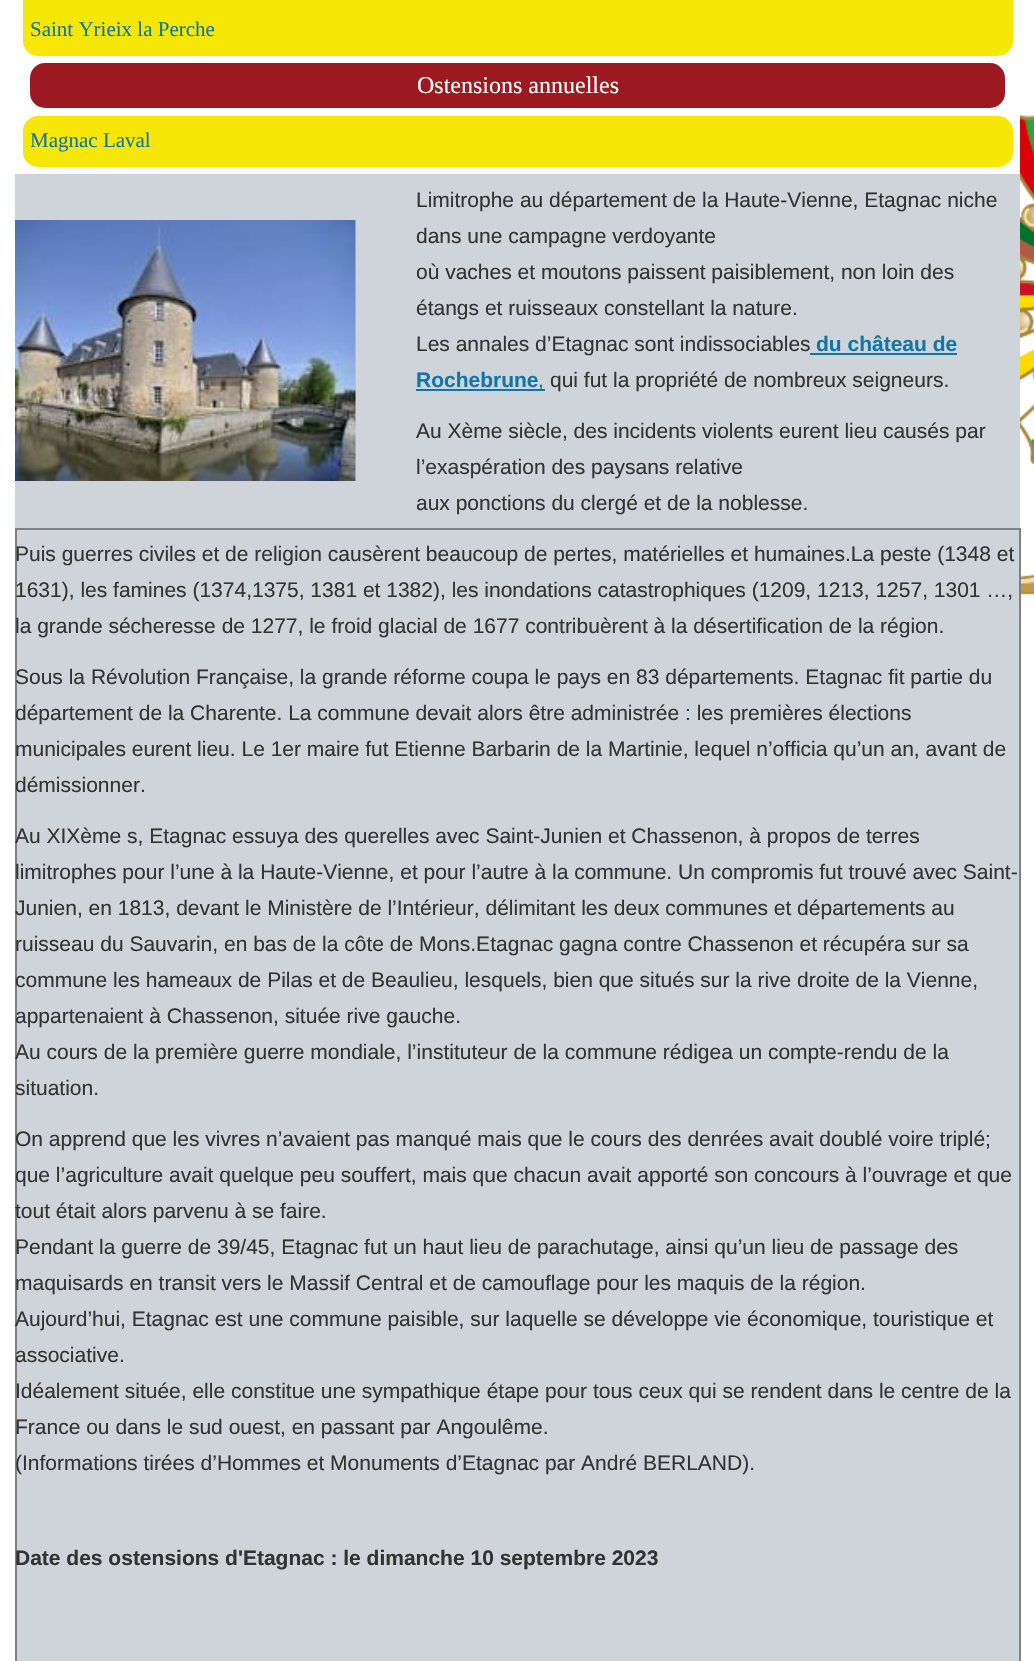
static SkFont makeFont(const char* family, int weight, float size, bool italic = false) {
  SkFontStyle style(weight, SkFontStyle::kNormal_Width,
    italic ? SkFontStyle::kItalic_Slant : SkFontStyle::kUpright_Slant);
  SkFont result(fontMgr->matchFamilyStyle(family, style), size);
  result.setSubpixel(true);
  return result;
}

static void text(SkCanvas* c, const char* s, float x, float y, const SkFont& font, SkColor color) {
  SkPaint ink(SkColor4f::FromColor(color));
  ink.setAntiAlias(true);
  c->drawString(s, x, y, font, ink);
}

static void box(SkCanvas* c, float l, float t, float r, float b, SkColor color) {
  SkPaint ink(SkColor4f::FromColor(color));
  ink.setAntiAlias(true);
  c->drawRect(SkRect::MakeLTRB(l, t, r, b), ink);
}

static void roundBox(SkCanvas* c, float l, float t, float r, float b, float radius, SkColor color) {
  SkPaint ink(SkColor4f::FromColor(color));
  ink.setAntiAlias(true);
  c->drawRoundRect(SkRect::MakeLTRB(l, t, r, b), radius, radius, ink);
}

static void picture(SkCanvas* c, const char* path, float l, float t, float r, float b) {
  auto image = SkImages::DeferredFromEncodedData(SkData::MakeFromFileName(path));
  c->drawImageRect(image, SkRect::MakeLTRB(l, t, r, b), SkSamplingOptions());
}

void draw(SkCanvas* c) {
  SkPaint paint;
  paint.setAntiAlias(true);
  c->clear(0xffffffff);
  picture(c, "img_01.png", 1020, 94, 1034, 595);
  roundBox(c, 23, -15, 1013, 56, 15, 0xfff7e707);
  SkFont face1 = makeFont("Liberation Serif", 400, 21);
  text(c, "Saint Yrieix la Perche", 30, 36, face1, 0xff1176a6);
  roundBox(c, 30, 63, 1005, 108, 15, 0xff9c1922);
  SkFont face2 = makeFont("Liberation Serif", 400, 24);
  text(c, "Ostensions annuelles", 417, 93, face2, 0xfffcfcfc);
  roundBox(c, 23, 116, 1013, 167, 15, 0xfff7e707);
  text(c, "Magnac Laval", 30, 147, face1, 0xff1176a6);
  box(c, 15, 174, 1020, 1661, 0xffced4d9);
  picture(c, "img_02.png", 15, 220, 356, 481);
  SkFont face3 = makeFont("Liberation Sans", 400, 21);
  text(c, "Limitrophe au département de la Haute-Vienne, Etagnac niche", 416, 207, face3, 0xff333333);
  text(c, "dans une campagne verdoyante", 416, 243, face3, 0xff333333);
  text(c, "où vaches et moutons paissent paisiblement, non loin des", 416, 279, face3, 0xff333333);
  text(c, "étangs et ruisseaux constellant la nature.", 416, 315, face3, 0xff333333);
  text(c, "Les annales d’Etagnac sont indissociables", 416, 351, face3, 0xff333333);
  SkFont face4 = makeFont("Liberation Sans", 700, 21);
  text(c, "du château de", 816, 351, face4, 0xff1176a6);
  box(c, 810, 353, 957, 355, 0xff1176a6);
  text(c, "Rochebrune", 416, 387, face4, 0xff1176a6);
  box(c, 416, 389, 545, 391, 0xff1176a6);
  text(c, ",", 538, 387, face3, 0xff1176a6);
  text(c, "qui fut la propriété de nombreux seigneurs.", 550, 387, face3, 0xff333333);
  text(c, "Au Xème siècle, des incidents violents eurent lieu causés par", 416, 438, face3, 0xff333333);
  text(c, "l’exaspération des paysans relative", 416, 474, face3, 0xff333333);
  text(c, "aux ponctions du clergé et de la noblesse.", 416, 510, face3, 0xff333333);
  box(c, 15, 528, 1020, 530, 0xff808080);
  box(c, 1019, 528, 1021, 1661, 0xff808080);
  box(c, 15, 528, 17, 1661, 0xff808080);
  text(c, "Puis guerres civiles et de religion causèrent beaucoup de pertes, matérielles et humaines.La peste (1348 et", 15, 561, face3, 0xff333333);
  text(c, "1631), les famines (1374,1375, 1381 et 1382), les inondations catastrophiques (1209, 1213, 1257, 1301 …,", 15, 597, face3, 0xff333333);
  text(c, "la grande sécheresse de 1277, le froid glacial de 1677 contribuèrent à la désertification de la région.", 15, 633, face3, 0xff333333);
  text(c, "Sous la Révolution Française, la grande réforme coupa le pays en 83 départements. Etagnac fit partie du", 15, 684, face3, 0xff333333);
  text(c, "département de la Charente. La commune devait alors être administrée : les premières élections", 15, 720, face3, 0xff333333);
  text(c, "municipales eurent lieu. Le 1er maire fut Etienne Barbarin de la Martinie, lequel n’officia qu’un an, avant de", 15, 756, face3, 0xff333333);
  text(c, "démissionner.", 15, 792, face3, 0xff333333);
  text(c, "Au XIXème s, Etagnac essuya des querelles avec Saint-Junien et Chassenon, à propos de terres", 15, 843, face3, 0xff333333);
  text(c, "limitrophes pour l’une à la Haute-Vienne, et pour l’autre à la commune. Un compromis fut trouvé avec Saint-", 15, 879, face3, 0xff333333);
  text(c, "Junien, en 1813, devant le Ministère de l’Intérieur, délimitant les deux communes et départements au", 15, 915, face3, 0xff333333);
  text(c, "ruisseau du Sauvarin, en bas de la côte de Mons.Etagnac gagna contre Chassenon et récupéra sur sa", 15, 951, face3, 0xff333333);
  text(c, "commune les hameaux de Pilas et de Beaulieu, lesquels, bien que situés sur la rive droite de la Vienne,", 15, 987, face3, 0xff333333);
  text(c, "appartenaient à Chassenon, située rive gauche.", 15, 1023, face3, 0xff333333);
  text(c, "Au cours de la première guerre mondiale, l’instituteur de la commune rédigea un compte-rendu de la", 15, 1059, face3, 0xff333333);
  text(c, "situation.", 15, 1095, face3, 0xff333333);
  text(c, "On apprend que les vivres n’avaient pas manqué mais que le cours des denrées avait doublé voire triplé;", 15, 1146, face3, 0xff333333);
  text(c, "que l’agriculture avait quelque peu souffert, mais que chacun avait apporté son concours à l’ouvrage et que", 15, 1182, face3, 0xff333333);
  text(c, "tout était alors parvenu à se faire.", 15, 1218, face3, 0xff333333);
  text(c, "Pendant la guerre de 39/45, Etagnac fut un haut lieu de parachutage, ainsi qu’un lieu de passage des", 15, 1254, face3, 0xff333333);
  text(c, "maquisards en transit vers le Massif Central et de camouflage pour les maquis de la région.", 15, 1290, face3, 0xff333333);
  text(c, "Aujourd’hui, Etagnac est une commune paisible, sur laquelle se développe vie économique, touristique et", 15, 1326, face3, 0xff333333);
  text(c, "associative.", 15, 1362, face3, 0xff333333);
  text(c, "Idéalement située, elle constitue une sympathique étape pour tous ceux qui se rendent dans le centre de la", 15, 1398, face3, 0xff333333);
  text(c, "France ou dans le sud ouest, en passant par Angoulême.", 15, 1434, face3, 0xff333333);
  text(c, "(Informations tirées d’Hommes et Monuments d’Etagnac par André BERLAND).", 15, 1470, face3, 0xff333333);
  text(c, "Date des ostensions d'Etagnac : le dimanche 10 septembre 2023", 15, 1565, face4, 0xff333333);
}
